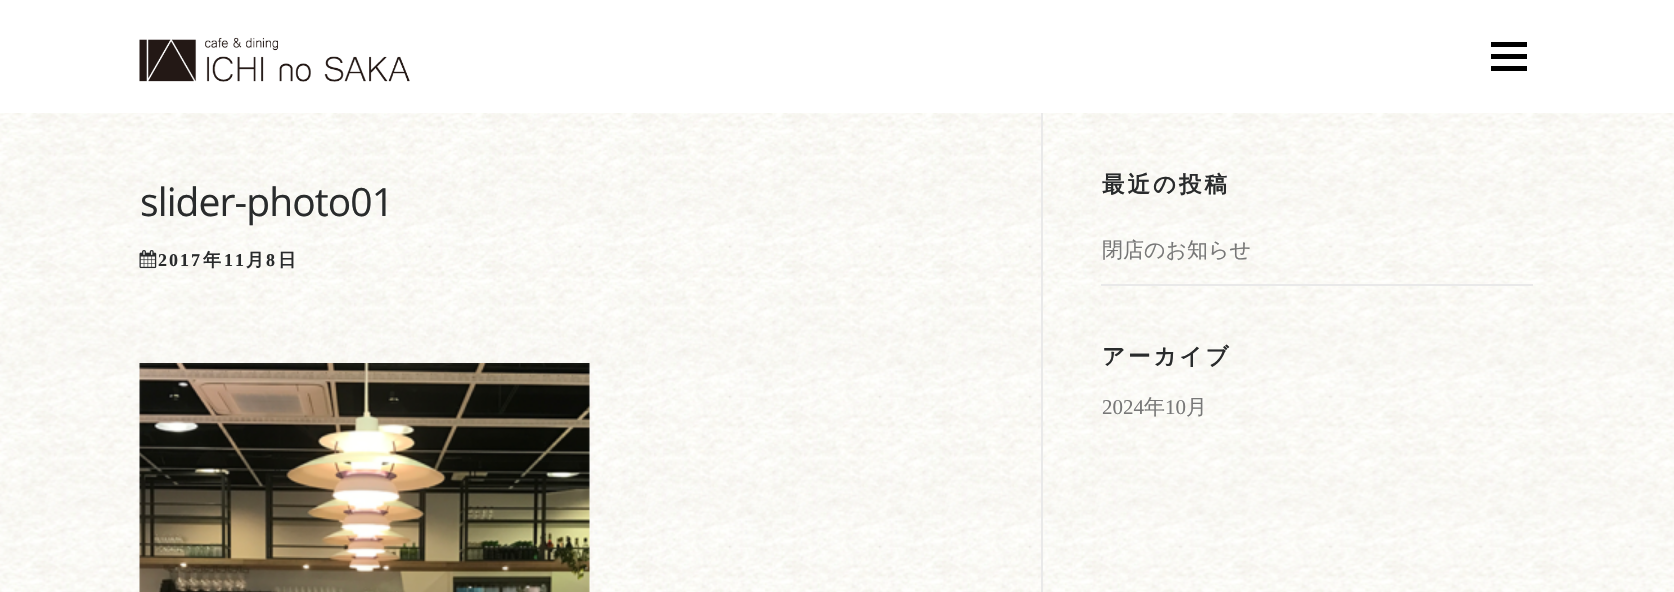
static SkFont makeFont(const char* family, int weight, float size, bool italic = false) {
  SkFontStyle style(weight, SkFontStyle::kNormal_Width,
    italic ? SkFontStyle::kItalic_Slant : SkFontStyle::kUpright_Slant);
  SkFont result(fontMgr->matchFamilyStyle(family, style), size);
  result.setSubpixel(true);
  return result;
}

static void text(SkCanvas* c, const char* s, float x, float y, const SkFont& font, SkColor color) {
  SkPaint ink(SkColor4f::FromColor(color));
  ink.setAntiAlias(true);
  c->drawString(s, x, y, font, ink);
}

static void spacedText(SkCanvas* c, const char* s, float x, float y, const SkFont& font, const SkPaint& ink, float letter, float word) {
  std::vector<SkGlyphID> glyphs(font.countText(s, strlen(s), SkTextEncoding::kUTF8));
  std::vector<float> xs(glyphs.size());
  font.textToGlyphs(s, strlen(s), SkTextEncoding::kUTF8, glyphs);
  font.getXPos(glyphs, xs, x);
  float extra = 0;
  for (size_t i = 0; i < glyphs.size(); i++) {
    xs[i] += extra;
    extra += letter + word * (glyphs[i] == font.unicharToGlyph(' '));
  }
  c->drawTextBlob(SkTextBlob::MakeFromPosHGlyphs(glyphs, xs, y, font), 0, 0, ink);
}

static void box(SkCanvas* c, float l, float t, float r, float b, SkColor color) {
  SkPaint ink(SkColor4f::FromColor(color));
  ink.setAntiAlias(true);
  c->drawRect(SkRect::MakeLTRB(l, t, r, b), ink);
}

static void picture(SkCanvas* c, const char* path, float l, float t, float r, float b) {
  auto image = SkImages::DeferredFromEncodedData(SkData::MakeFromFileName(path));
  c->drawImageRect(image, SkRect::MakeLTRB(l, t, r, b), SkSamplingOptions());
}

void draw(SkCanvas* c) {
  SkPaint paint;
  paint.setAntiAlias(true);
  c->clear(0xffffffff);
  picture(c, "img_01.png", 139, 37, 410, 82);
  box(c, 1491, 54, 1527, 59, 0xff000000);
  box(c, 1491, 42, 1527, 47, 0xff000000);
  box(c, 1491, 66, 1527, 71, 0xff000000);
  picture(c, "img_02.png", 0, 113, 1674, 592);
  box(c, 1041, 113, 1043, 592, 0xffe9e9e9);
  SkFont face1 = makeFont("Open Sans", 400, 39);
  paint.setColor(0xff292b2c);
  spacedText(c, "slider-photo01", 140, 216, face1, paint, -0.9f, 0);
  picture(c, "img_03.png", 139, 250, 157, 269);
  SkFont face2 = makeFont("Liberation Serif", 700, 18);
  spacedText(c, "2017", 158, 266, face2, paint, 2, 0);
  SkFont face3 = makeFont("WenQuanYi Zen Hei", 700, 18);
  spacedText(c, "年", 203, 266, face3, paint, 2, 0);
  spacedText(c, "11", 224, 266, face2, paint, 2, 0);
  spacedText(c, "月", 246, 266, face3, paint, 2, 0);
  spacedText(c, "8", 266, 266, face2, paint, 2, 0);
  spacedText(c, "日", 278, 266, face3, paint, 2, 0);
  picture(c, "img_04.png", 139, 363, 590, 592);
  SkFont face4 = makeFont("WenQuanYi Zen Hei", 700, 22.5f);
  spacedText(c, "最近の投稿", 1102, 192, face4, paint, 3, 0);
  box(c, 1101, 284, 1533, 286, 0xffe9e9e9);
  SkFont face5 = makeFont("WenQuanYi Zen Hei", 500, 21);
  text(c, "閉店のお知らせ", 1102, 257, face5, 0xff777777);
  spacedText(c, "アーカイブ", 1102, 364, face4, paint, 3, 0);
  SkFont face6 = makeFont("Liberation Serif", 400, 21);
  text(c, "2024", 1102, 414, face6, 0xff777777);
  text(c, "年", 1144, 414, face5, 0xff777777);
  text(c, "10", 1165, 414, face6, 0xff777777);
  text(c, "月", 1186, 414, face5, 0xff777777);
}
